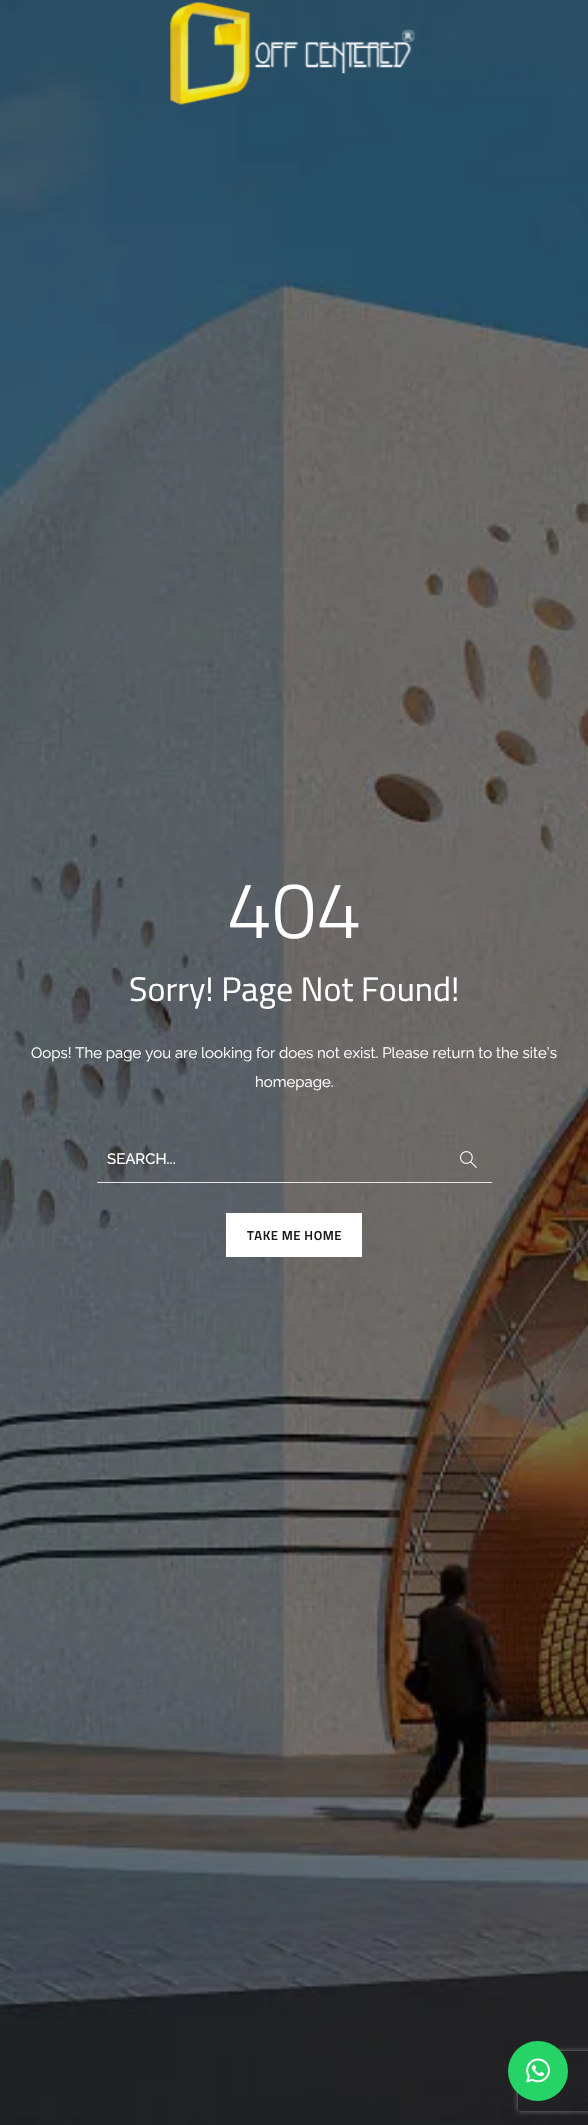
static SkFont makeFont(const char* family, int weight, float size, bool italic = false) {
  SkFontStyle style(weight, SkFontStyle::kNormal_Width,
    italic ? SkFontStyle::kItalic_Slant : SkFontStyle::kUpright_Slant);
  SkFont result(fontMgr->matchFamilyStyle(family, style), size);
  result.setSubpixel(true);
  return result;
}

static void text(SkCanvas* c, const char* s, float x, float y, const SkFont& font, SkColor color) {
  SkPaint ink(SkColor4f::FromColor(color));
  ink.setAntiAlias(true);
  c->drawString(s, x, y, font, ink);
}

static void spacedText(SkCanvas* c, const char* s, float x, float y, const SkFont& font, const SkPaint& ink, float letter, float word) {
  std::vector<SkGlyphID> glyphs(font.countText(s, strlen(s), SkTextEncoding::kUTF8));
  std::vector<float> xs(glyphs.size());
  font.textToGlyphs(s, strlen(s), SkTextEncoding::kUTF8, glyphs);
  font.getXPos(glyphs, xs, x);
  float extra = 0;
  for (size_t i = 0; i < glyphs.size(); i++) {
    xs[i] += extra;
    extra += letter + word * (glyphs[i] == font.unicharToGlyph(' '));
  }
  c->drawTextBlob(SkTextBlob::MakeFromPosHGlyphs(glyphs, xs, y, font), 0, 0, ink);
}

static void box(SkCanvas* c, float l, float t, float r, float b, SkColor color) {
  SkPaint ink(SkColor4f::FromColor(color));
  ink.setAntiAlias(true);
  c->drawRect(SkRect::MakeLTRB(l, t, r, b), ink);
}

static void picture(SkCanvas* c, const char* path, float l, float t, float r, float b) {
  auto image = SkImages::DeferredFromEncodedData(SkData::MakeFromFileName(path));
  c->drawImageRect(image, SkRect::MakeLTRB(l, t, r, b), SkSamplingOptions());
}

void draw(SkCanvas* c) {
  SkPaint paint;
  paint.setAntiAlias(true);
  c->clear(0xffffffff);
  picture(c, "img_01.png", 0, 0, 588, 2125);
  picture(c, "img_02.png", 170, 2, 415, 105);
  SkFont face1 = makeFont("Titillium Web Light", 300, 80);
  text(c, "404", 227, 938, face1, 0xffffffff);
  SkFont face2 = makeFont("Titillium Web", 400, 34);
  text(c, "Sorry! Page Not Found!", 129, 1001, face2, 0xffffffff);
  SkFont face3 = makeFont("Raleway", 400, 15);
  text(c, "Oops! The page you are looking for does not exist. Please return to the site’s", 31, 1058, face3, 0xffffffff);
  text(c, "homepage.", 255, 1087, face3, 0xffffffff);
  box(c, 97, 1182, 492, 1183, 0xffe6e6e6);
  SkFont face4 = makeFont("Raleway", 500, 15);
  text(c, "SEARCH...", 107, 1164, face4, 0xffffffff);
  picture(c, "img_03.png", 460, 1151, 477, 1168);
  box(c, 226, 1213, 362, 1257, 0xffffffff);
  SkFont face5 = makeFont("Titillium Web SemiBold", 600, 13);
  paint.setColor(0xff1a1a1a);
  spacedText(c, "TAKE ME HOME", 247, 1240, face5, paint, 0.5f, 0);
  c->save();
  c->clipPath(SkPathBuilder(SkPathFillType::kEvenOdd).moveTo(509, 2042).lineTo(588, 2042).lineTo(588, 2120).lineTo(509, 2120).close().moveTo(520, 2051).lineTo(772, 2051).cubicTo(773, 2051, 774, 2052, 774, 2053).lineTo(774, 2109).cubicTo(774, 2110, 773, 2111, 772, 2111).lineTo(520, 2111).cubicTo(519, 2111, 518, 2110, 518, 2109).lineTo(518, 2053).cubicTo(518, 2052, 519, 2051, 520, 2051).close().detach(), true);
  paint.setColor(0xff808080);
  paint.setMaskFilter(SkMaskFilter::MakeBlur(kNormal_SkBlurStyle, 2.5f));
  c->drawRoundRect(SkRect::MakeLTRB(518, 2051, 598, 2111), 2, 2, paint);
  paint.setMaskFilter(nullptr);
  c->restore();
  paint.setColor(0xff25d366);
  c->drawCircle(538, 2071, 30, paint);
  picture(c, "img_04.png", 526, 2058, 550, 2083);
}
